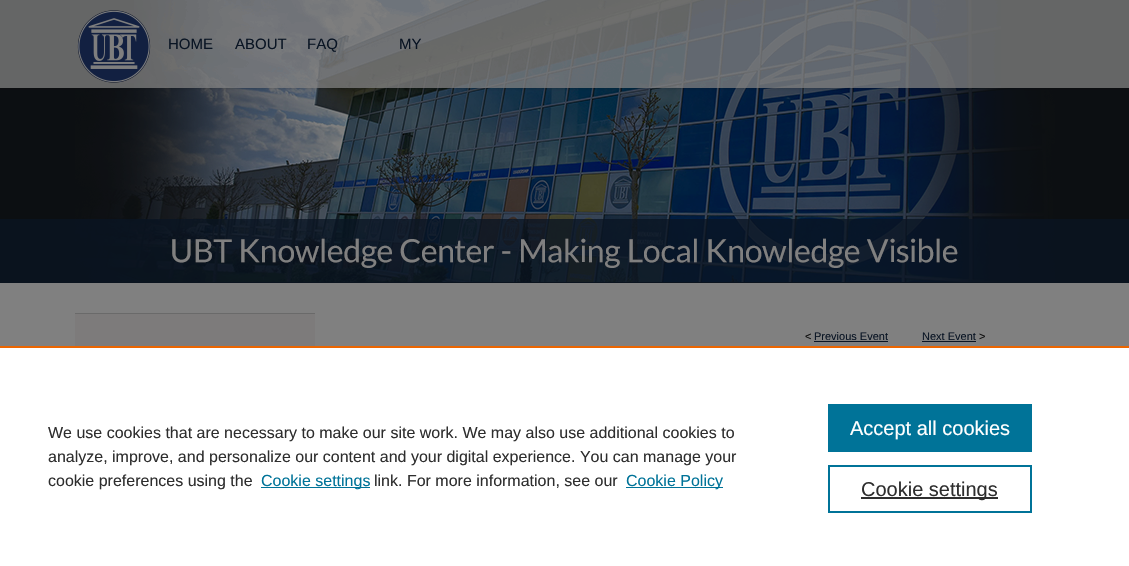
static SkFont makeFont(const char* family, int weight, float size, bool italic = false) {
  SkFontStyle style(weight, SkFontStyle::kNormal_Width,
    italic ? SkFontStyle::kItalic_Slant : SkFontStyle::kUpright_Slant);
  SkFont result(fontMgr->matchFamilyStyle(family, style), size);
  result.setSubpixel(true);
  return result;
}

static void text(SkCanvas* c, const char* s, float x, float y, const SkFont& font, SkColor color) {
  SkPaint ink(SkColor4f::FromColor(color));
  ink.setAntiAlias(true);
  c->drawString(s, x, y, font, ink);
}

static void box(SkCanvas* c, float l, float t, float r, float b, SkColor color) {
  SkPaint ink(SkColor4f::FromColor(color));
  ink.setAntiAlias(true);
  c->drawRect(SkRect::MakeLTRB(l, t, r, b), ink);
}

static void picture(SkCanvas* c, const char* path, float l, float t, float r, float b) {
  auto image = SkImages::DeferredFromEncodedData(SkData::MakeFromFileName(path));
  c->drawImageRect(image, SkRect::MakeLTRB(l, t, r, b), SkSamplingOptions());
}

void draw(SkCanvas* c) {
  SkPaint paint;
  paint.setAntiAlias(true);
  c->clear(0xff808080);
  picture(c, "img_01.png", 0, 0, 1129, 283);
  picture(c, "img_02.png", 134, 0, 1001, 88);
  picture(c, "img_03.png", 77, 10, 151, 83);
  SkFont face1 = makeFont("Liberation Sans", 400, 15);
  text(c, "HOME", 168, 49, face1, 0xff091423);
  text(c, "ABOUT", 235, 49, face1, 0xff091423);
  text(c, "FAQ", 307, 49, face1, 0xff091423);
  text(c, "MY", 399, 49, face1, 0xff091423);
  picture(c, "img_04.png", 75, 88, 1055, 283);
  box(c, 75, 314, 315, 346, 0xff7d7b7b);
  box(c, 75, 313, 315, 314, 0xff6a6a6a);
  SkFont face2 = makeFont("Liberation Sans", 400, 11);
  text(c, "<", 805, 340, face2, 0xff111111);
  text(c, "Previous Event", 814, 340, face2, 0xff091423);
  box(c, 814, 341, 888, 342, 0xff091423);
  text(c, "Next Event", 922, 340, face2, 0xff091423);
  box(c, 922, 341, 976, 342, 0xff091423);
  text(c, ">", 979, 340, face2, 0xff111111);
  box(c, 0, 348, 1129, 566, 0xffffffff);
  box(c, 0, 346, 1129, 348, 0xffeb6500);
  SkFont face3 = makeFont("Liberation Sans", 400, 16);
  text(c, "We use cookies that are necessary to make our site work. We may also use additional cookies to", 48, 438, face3, 0xff2e2e2e);
  text(c, "analyze, improve, and personalize our content and your digital experience. You can manage your", 48, 462, face3, 0xff2e2e2e);
  text(c, "cookie preferences using the", 48, 486, face3, 0xff2e2e2e);
  box(c, 261, 487, 370, 488, 0xff007398);
  text(c, "Cookie settings", 261, 486, face3, 0xff007398);
  text(c, "link. For more information, see our", 374, 486, face3, 0xff2e2e2e);
  box(c, 626, 487, 723, 488, 0xff007398);
  text(c, "Cookie Policy", 626, 486, face3, 0xff007398);
  box(c, 828, 404, 1032, 452, 0xff007398);
  SkFont face4 = makeFont("Liberation Sans", 400, 20);
  text(c, "Accept all cookies", 850, 435, face4, 0xffffffff);
  paint.setStyle(SkPaint::kStroke_Style);
  paint.setStrokeWidth(2);
  paint.setColor(0xff007398);
  c->drawRect(SkRect::MakeLTRB(829, 466, 1031, 512), paint);
  box(c, 861, 497, 998, 499, 0xff2e2e2e);
  text(c, "Cookie settings", 861, 496, face4, 0xff2e2e2e);
}
